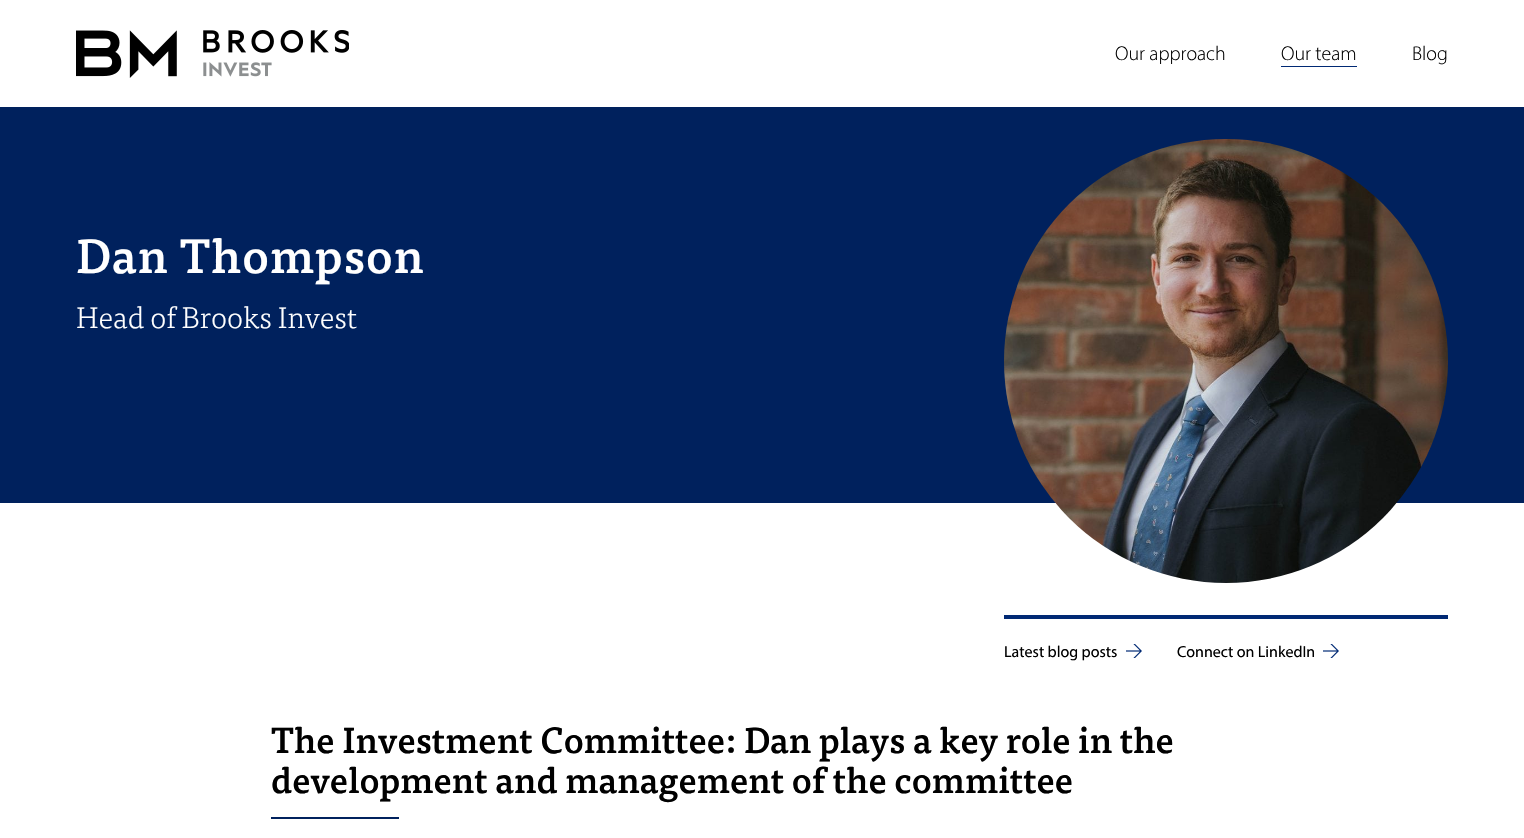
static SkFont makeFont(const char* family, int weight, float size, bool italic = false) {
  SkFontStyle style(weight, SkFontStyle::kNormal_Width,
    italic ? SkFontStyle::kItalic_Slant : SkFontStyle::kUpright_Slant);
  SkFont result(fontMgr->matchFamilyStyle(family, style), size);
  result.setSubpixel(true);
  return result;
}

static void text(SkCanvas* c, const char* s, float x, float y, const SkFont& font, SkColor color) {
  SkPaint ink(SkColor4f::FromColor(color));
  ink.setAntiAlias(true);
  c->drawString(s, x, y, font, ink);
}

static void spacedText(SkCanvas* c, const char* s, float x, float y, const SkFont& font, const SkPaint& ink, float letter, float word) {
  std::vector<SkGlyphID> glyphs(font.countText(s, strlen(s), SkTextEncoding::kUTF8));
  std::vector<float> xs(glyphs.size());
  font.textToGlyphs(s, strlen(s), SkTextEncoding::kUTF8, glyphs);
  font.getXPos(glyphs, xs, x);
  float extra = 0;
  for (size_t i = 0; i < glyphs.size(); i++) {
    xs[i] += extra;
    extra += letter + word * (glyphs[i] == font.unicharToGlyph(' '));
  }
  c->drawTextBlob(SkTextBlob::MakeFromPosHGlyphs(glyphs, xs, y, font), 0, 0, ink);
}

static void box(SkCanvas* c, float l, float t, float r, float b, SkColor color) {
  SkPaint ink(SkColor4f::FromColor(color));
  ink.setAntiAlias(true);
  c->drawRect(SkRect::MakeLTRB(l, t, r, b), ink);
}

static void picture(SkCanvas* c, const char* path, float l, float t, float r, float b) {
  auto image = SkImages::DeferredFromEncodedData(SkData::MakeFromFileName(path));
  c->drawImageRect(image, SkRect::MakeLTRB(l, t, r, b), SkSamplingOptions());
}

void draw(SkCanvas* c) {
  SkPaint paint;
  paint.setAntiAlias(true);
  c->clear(0xff00215d);
  box(c, 0, 0, 1524, 107, 0xffffffff);
  picture(c, "img_01.png", 76, 30, 349, 78);
  SkFont face1 = makeFont("Myriad", 300, 20);
  text(c, "Our approach", 1115, 60, face1, 0xff000000);
  box(c, 1281, 66, 1357, 67, 0xff002974);
  text(c, "Our team", 1281, 60, face1, 0xff000000);
  text(c, "Blog", 1412, 60, face1, 0xff000000);
  SkFont face2 = makeFont("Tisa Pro", 500, 47.75f);
  paint.setColor(0xffffffff);
  spacedText(c, "Dan Thompson", 76, 273, face2, paint, 1, 0);
  SkFont face3 = makeFont("Tisa Pro", 300, 30);
  text(c, "Head of Brooks Invest", 76, 328, face3, 0xffffffff);
  box(c, 0, 503, 1524, 838, 0xffffffff);
  picture(c, "img_02.png", 1004, 139, 1448, 583);
  box(c, 1004, 615, 1448, 619, 0xff002974);
  SkFont face4 = makeFont("Myriad", 400, 16);
  text(c, "Latest blog posts", 1004, 657, face4, 0xff000000);
  picture(c, "img_03.png", 1126, 644, 1142, 658);
  text(c, "Connect on LinkedIn", 1177, 657, face4, 0xff000000);
  picture(c, "img_03.png", 1323, 644, 1339, 658);
  SkFont face5 = makeFont("Tisa Pro", 500, 35.9f);
  text(c, "The Investment Committee: Dan plays a key role in the", 271, 753, face5, 0xff000000);
  text(c, "development and management of the committee", 271, 793, face5, 0xff000000);
  box(c, 271, 817, 399, 819, 0xff00215d);
}
